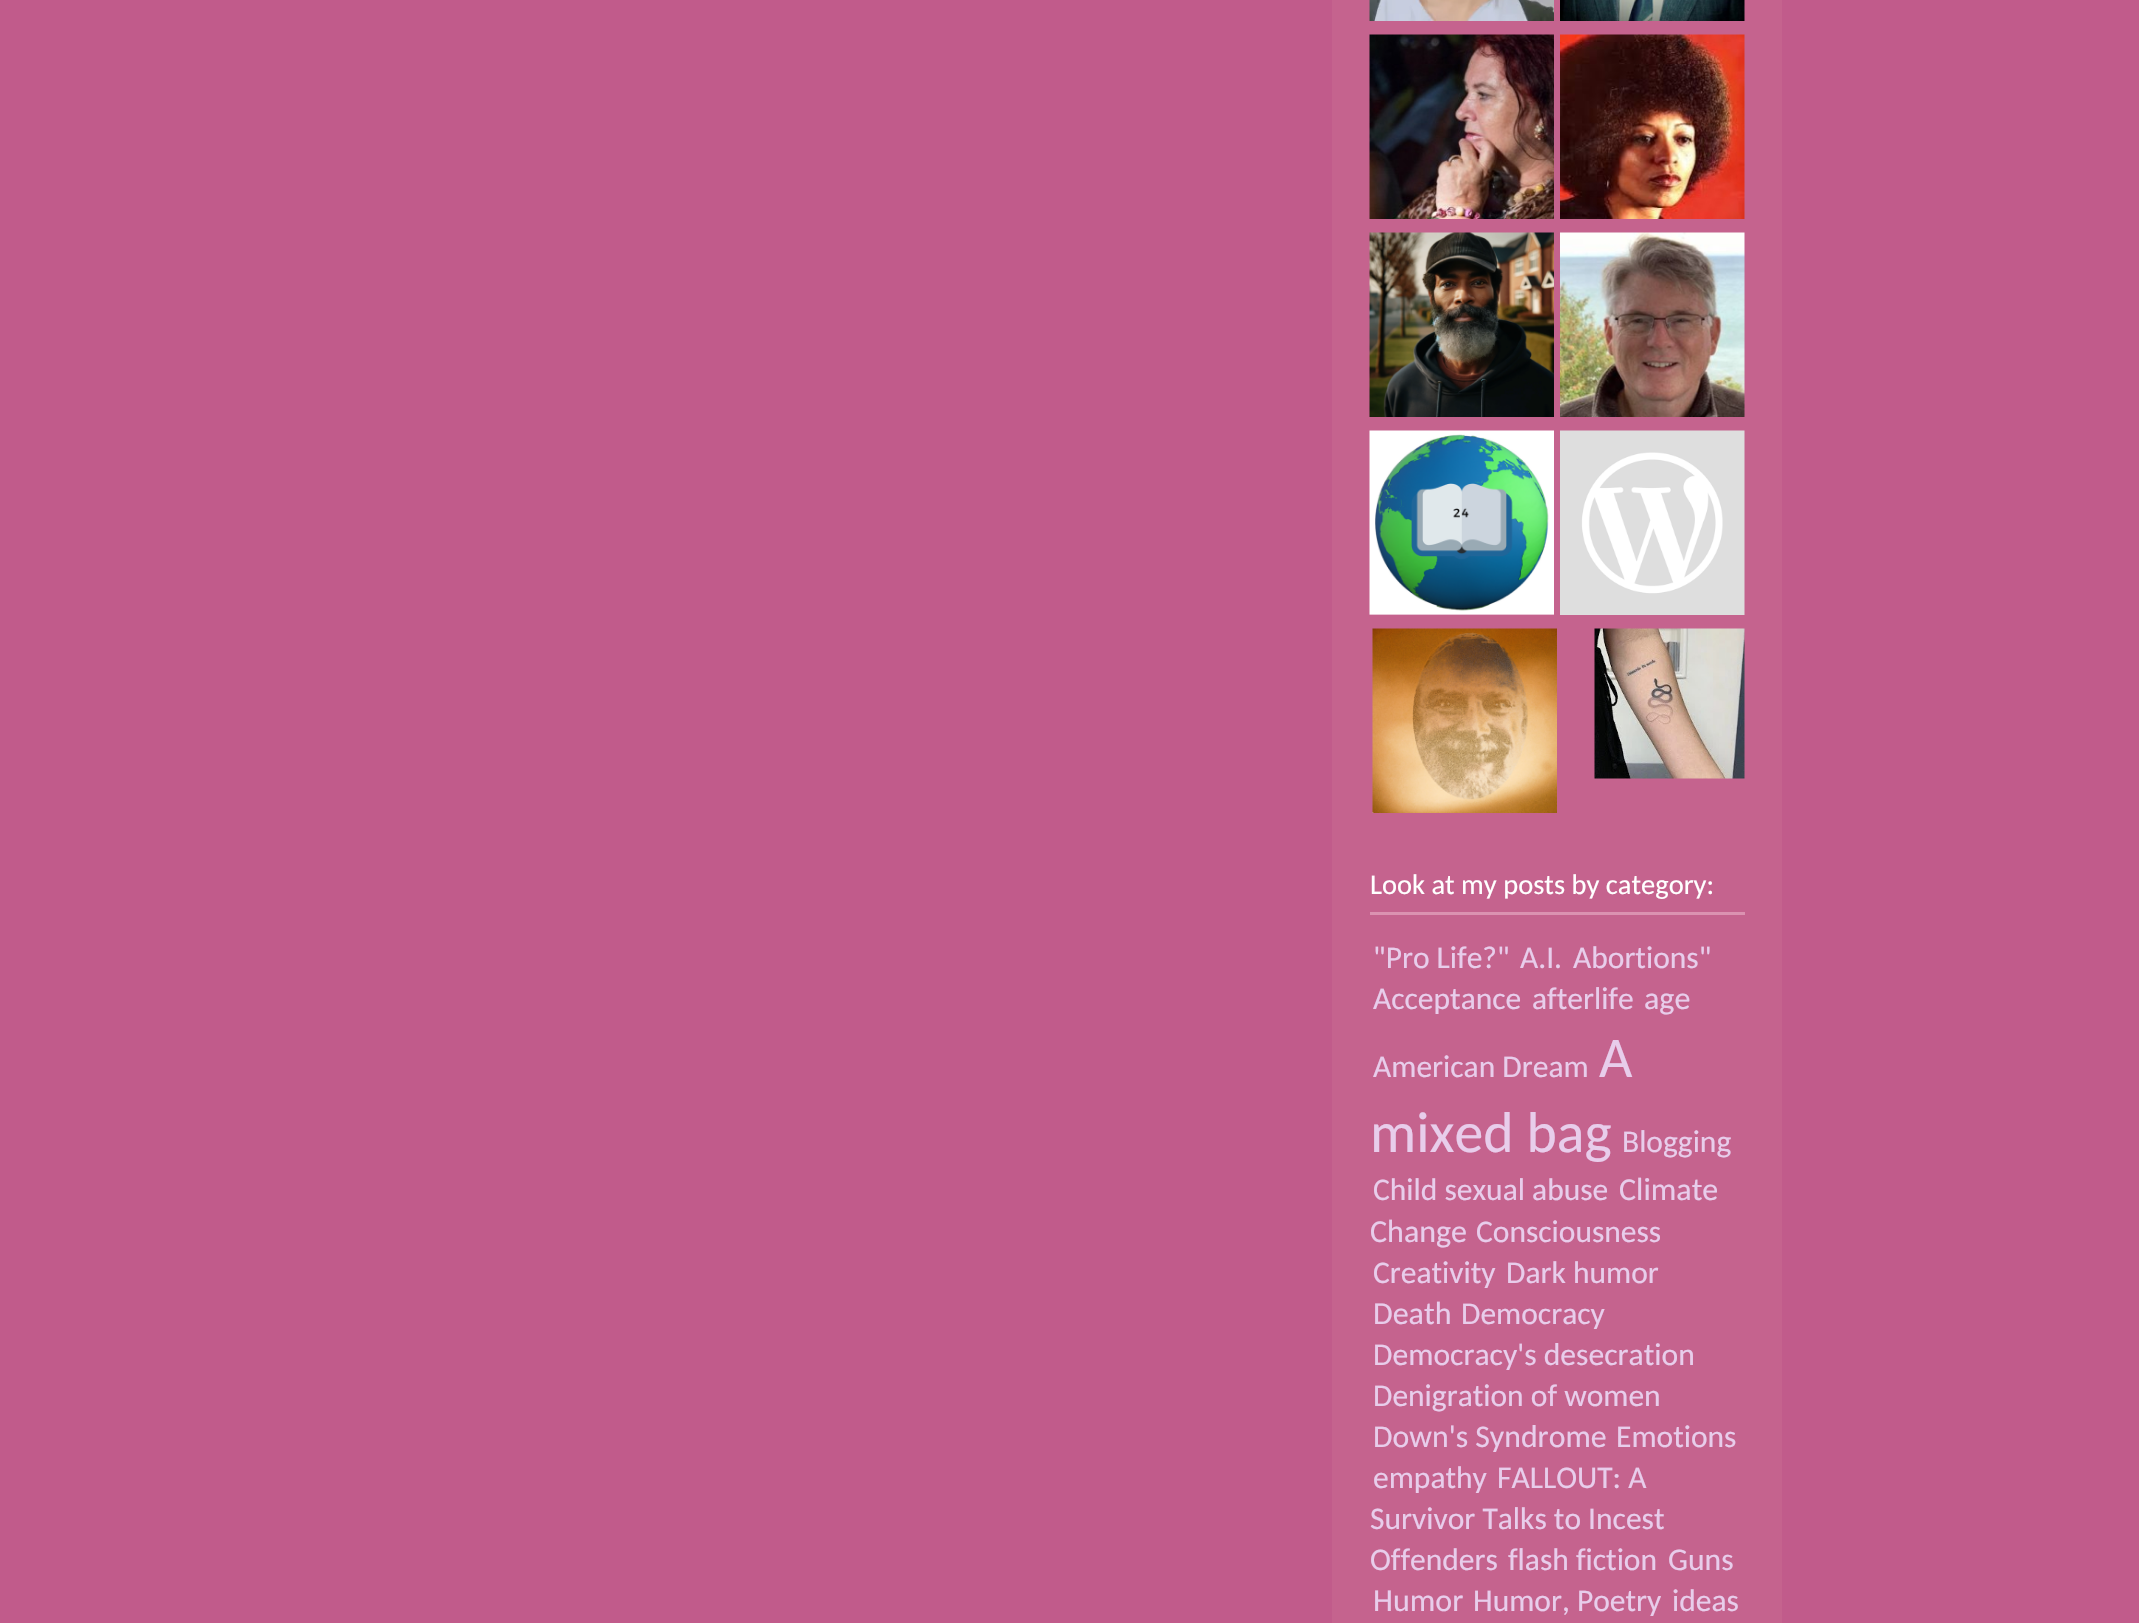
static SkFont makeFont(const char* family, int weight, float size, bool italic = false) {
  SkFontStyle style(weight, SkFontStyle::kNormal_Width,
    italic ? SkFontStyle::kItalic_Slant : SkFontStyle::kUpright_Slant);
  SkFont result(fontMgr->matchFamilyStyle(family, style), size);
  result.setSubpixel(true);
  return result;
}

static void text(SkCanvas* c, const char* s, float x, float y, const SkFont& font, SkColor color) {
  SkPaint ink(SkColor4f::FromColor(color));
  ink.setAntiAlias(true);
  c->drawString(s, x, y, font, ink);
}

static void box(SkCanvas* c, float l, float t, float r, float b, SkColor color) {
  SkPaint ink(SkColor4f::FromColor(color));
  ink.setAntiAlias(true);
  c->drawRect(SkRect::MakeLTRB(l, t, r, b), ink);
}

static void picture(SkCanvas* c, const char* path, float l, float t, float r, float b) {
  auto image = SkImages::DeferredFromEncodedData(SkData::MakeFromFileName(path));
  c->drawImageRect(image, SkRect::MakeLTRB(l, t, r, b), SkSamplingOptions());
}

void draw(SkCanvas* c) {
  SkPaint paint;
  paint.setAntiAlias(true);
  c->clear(0xffc15b8b);
  box(c, 1332, 0, 1782, 1623, 0xffc5638e);
  picture(c, "img_01.png", 1369, 0, 1554, 21);
  picture(c, "img_02.png", 1560, 0, 1745, 21);
  picture(c, "img_03.png", 1369, 34, 1554, 219);
  picture(c, "img_04.png", 1560, 34, 1745, 219);
  picture(c, "img_05.png", 1369, 232, 1554, 417);
  picture(c, "img_06.png", 1560, 232, 1745, 417);
  picture(c, "img_07.png", 1369, 430, 1554, 615);
  picture(c, "img_08.png", 1560, 430, 1745, 615);
  picture(c, "img_09.png", 1372, 628, 1557, 813);
  picture(c, "img_10.png", 1594, 628, 1745, 779);
  box(c, 1370, 912, 1745, 915, 0xffdb92b1);
  SkFont face1 = makeFont("Carlito", 400, 28.5f);
  text(c, "Look at my posts by category:", 1370, 894, face1, 0xffffffff);
  SkFont face2 = makeFont("Carlito", 400, 31.5f);
  text(c, "\"Pro Life?\"", 1373, 968, face2, 0xffe8cdeb);
  text(c, "A.I.", 1520, 968, face2, 0xffe8cdeb);
  text(c, "Abortions\"", 1573, 968, face2, 0xffe8cdeb);
  text(c, "Acceptance", 1373, 1009, face2, 0xffe8cdeb);
  text(c, "afterlife", 1532, 1009, face2, 0xffe8cdeb);
  SkFont face3 = makeFont("Carlito", 400, 32);
  text(c, "age", 1644, 1009, face3, 0xffe8cdeb);
  text(c, "American Dream", 1373, 1077, face2, 0xffe8cdeb);
  SkFont face4 = makeFont("Carlito", 400, 57.75f);
  text(c, "A", 1599, 1077, face4, 0xffe8cdeb);
  text(c, "mixed bag", 1370, 1152, face4, 0xffe8cdeb);
  text(c, "Blogging", 1622, 1152, face2, 0xffe8cdeb);
  text(c, "Child sexual abuse", 1373, 1200, face2, 0xffe8cdeb);
  text(c, "Climate", 1619, 1200, face3, 0xffe8cdeb);
  text(c, "Change", 1370, 1242, face3, 0xffe8cdeb);
  text(c, "Consciousness", 1476, 1242, face2, 0xffe8cdeb);
  text(c, "Creativity", 1373, 1283, face2, 0xffe8cdeb);
  text(c, "Dark humor", 1506, 1283, face2, 0xffe8cdeb);
  text(c, "Death", 1373, 1324, face3, 0xffe8cdeb);
  text(c, "Democracy", 1461, 1324, face2, 0xffe8cdeb);
  SkFont face5 = makeFont("Carlito", 400, 31.6f);
  text(c, "Democracy's desecration", 1373, 1365, face5, 0xffe8cdeb);
  text(c, "Denigration of women", 1373, 1406, face2, 0xffe8cdeb);
  SkFont face6 = makeFont("Carlito", 400, 31.75f);
  text(c, "Down's Syndrome", 1373, 1447, face6, 0xffe8cdeb);
  text(c, "Emotions", 1616, 1447, face2, 0xffe8cdeb);
  text(c, "empathy", 1373, 1488, face2, 0xffe8cdeb);
  text(c, "FALLOUT: A", 1497, 1488, face2, 0xffe8cdeb);
  text(c, "Survivor Talks to Incest", 1370, 1529, face2, 0xffe8cdeb);
  text(c, "Offenders", 1370, 1570, face2, 0xffe8cdeb);
  text(c, "flash fiction", 1508, 1570, face2, 0xffe8cdeb);
  text(c, "Guns", 1668, 1570, face5, 0xffe8cdeb);
  text(c, "Humor", 1373, 1611, face3, 0xffe8cdeb);
  text(c, "Humor, Poetry", 1473, 1611, face2, 0xffe8cdeb);
  text(c, "ideas", 1672, 1611, face2, 0xffe8cdeb);
}
